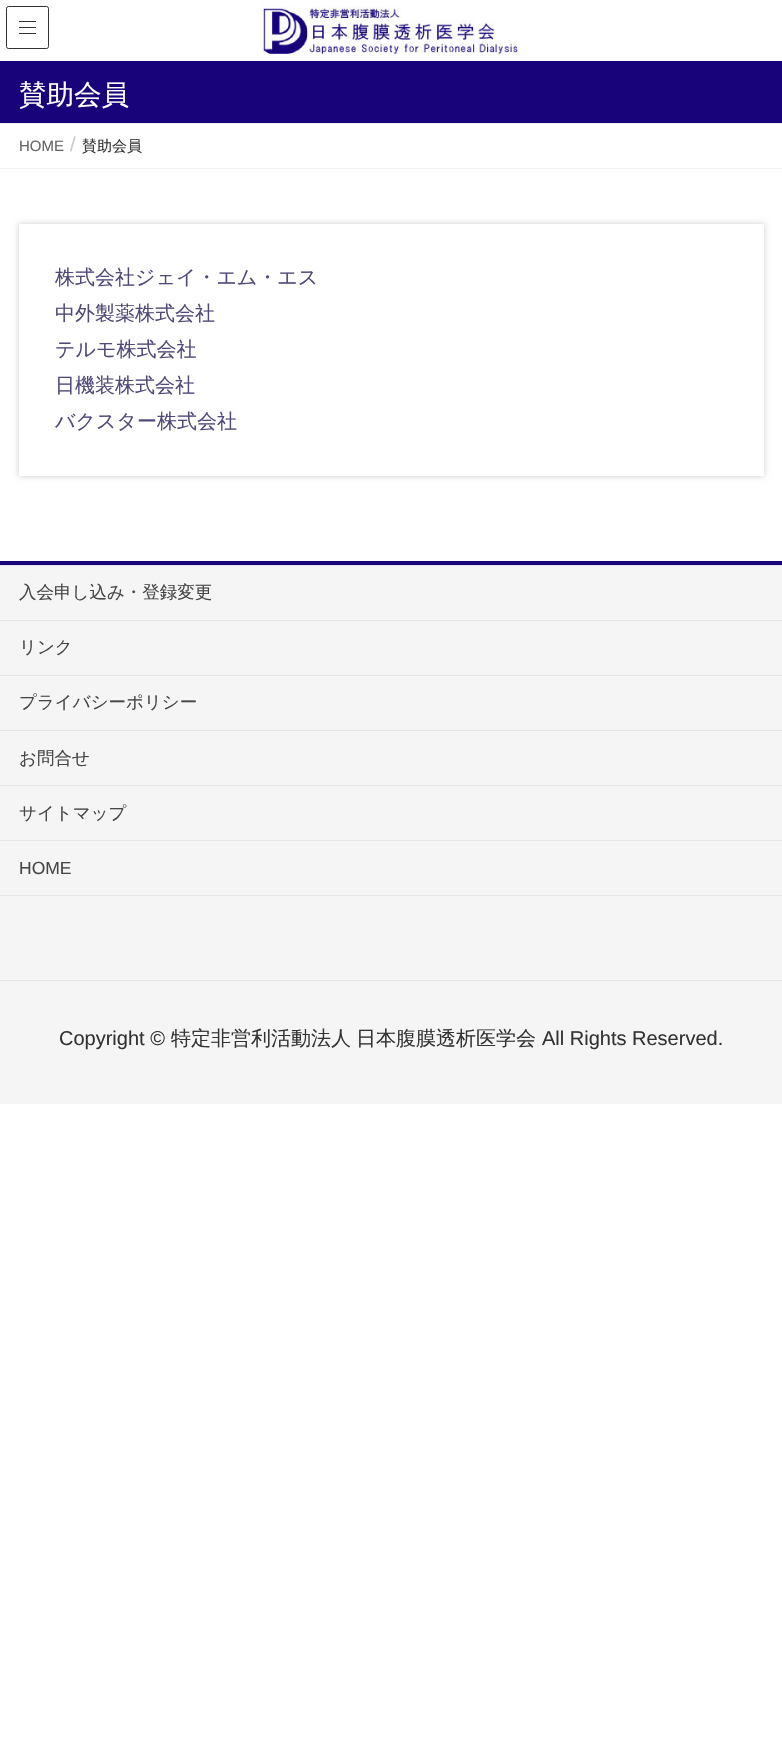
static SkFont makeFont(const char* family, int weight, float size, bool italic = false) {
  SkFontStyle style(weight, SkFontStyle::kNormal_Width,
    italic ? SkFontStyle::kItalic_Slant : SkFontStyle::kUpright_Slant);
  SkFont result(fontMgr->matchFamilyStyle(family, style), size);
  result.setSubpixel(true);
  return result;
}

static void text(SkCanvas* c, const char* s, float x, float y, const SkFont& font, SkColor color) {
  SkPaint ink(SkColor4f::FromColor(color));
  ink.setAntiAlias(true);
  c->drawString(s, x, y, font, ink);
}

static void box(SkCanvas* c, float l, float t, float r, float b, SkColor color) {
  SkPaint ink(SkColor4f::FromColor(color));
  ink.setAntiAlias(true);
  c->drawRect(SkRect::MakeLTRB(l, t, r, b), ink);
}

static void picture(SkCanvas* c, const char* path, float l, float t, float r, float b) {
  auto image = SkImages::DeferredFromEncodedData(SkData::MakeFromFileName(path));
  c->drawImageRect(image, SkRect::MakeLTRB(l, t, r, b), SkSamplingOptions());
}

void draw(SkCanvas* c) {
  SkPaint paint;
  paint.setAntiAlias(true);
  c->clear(0xffffffff);
  box(c, 19, 21, 36, 22, 0xff333333);
  box(c, 19, 27, 36, 28, 0xff333333);
  box(c, 19, 33, 36, 34, 0xff333333);
  paint.setStyle(SkPaint::kStroke_Style);
  paint.setStrokeWidth(1);
  paint.setColor(0xff333333);
  c->drawRoundRect(SkRect::MakeLTRB(6.5f, 6.5f, 48.5f, 48.5f), 2, 2, paint);
  picture(c, "img_01.png", 261, 6, 521, 56);
  box(c, 0, 61, 782, 123, 0xff18037b);
  box(c, 0, 123, 782, 124, 0xffeeeeee);
  SkFont face1 = makeFont("WenQuanYi Zen Hei", 500, 27.5f);
  text(c, "賛助会員", 19, 104, face1, 0xffffffff);
  box(c, 0, 168, 782, 169, 0xfff3f3f3);
  SkFont face2 = makeFont("Liberation Sans", 400, 15);
  text(c, "HOME", 19, 151, face2, 0xff666666);
  SkFont face3 = makeFont("Liberation Sans", 400, 20);
  text(c, "/", 70, 151, face3, 0xffcccccc);
  SkFont face4 = makeFont("WenQuanYi Zen Hei", 500, 15);
  text(c, "賛助会員", 82, 151, face4, 0xff333333);
  c->save();
  c->clipPath(SkPathBuilder(SkPathFillType::kEvenOdd).moveTo(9, 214).lineTo(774, 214).lineTo(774, 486).lineTo(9, 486).close().moveTo(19, 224).lineTo(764, 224).lineTo(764, 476).lineTo(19, 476).close().detach(), true);
  paint.setStyle(SkPaint::kFill_Style);
  paint.setColor(0x33000000);
  paint.setMaskFilter(SkMaskFilter::MakeBlur(kNormal_SkBlurStyle, 3));
  c->drawRect(SkRect::MakeLTRB(19, 224, 764, 476), paint);
  paint.setMaskFilter(nullptr);
  c->restore();
  SkFont face5 = makeFont("WenQuanYi Zen Hei", 500, 20);
  text(c, "株式会社ジェイ・エム・エス", 55, 284, face5, 0xff52497a);
  text(c, "中外製薬株式会社", 55, 320, face5, 0xff52497a);
  text(c, "テルモ株式会社", 55, 356, face5, 0xff52497a);
  text(c, "日機装株式会社", 55, 392, face5, 0xff52497a);
  text(c, "バクスター株式会社", 55, 428, face5, 0xff52497a);
  box(c, 0, 566, 782, 1104, 0xfff5f5f5);
  box(c, 0, 561, 782, 565, 0xff18037b);
  box(c, 0, 565, 782, 566, 0xffe5e5e5);
  box(c, 0, 895, 782, 896, 0xffe5e5e5);
  box(c, 0, 620, 782, 621, 0xffe5e5e5);
  SkFont face6 = makeFont("WenQuanYi Zen Hei", 500, 17.5f);
  text(c, "入会申し込み・登録変更", 19, 598, face6, 0xff464646);
  box(c, 0, 675, 782, 676, 0xffe5e5e5);
  text(c, "リンク", 19, 653, face6, 0xff464646);
  box(c, 0, 730, 782, 731, 0xffe5e5e5);
  text(c, "プライバシーポリシー", 19, 708, face6, 0xff464646);
  box(c, 0, 785, 782, 786, 0xffe5e5e5);
  text(c, "お問合せ", 19, 764, face6, 0xff464646);
  box(c, 0, 840, 782, 841, 0xffe5e5e5);
  text(c, "サイトマップ", 19, 819, face6, 0xff464646);
  SkFont face7 = makeFont("Liberation Sans", 400, 17.5f);
  text(c, "HOME", 19, 874, face7, 0xff464646);
  box(c, 0, 980, 782, 981, 0xffe5e5e5);
  text(c, "Copyright ©", 59, 1045, face3, 0xff333333);
  text(c, "特定非営利活動法人", 171, 1045, face5, 0xff333333);
  text(c, "日本腹膜透析医学会", 356, 1045, face5, 0xff333333);
  text(c, "All Rights Reserved.", 542, 1045, face3, 0xff333333);
}
